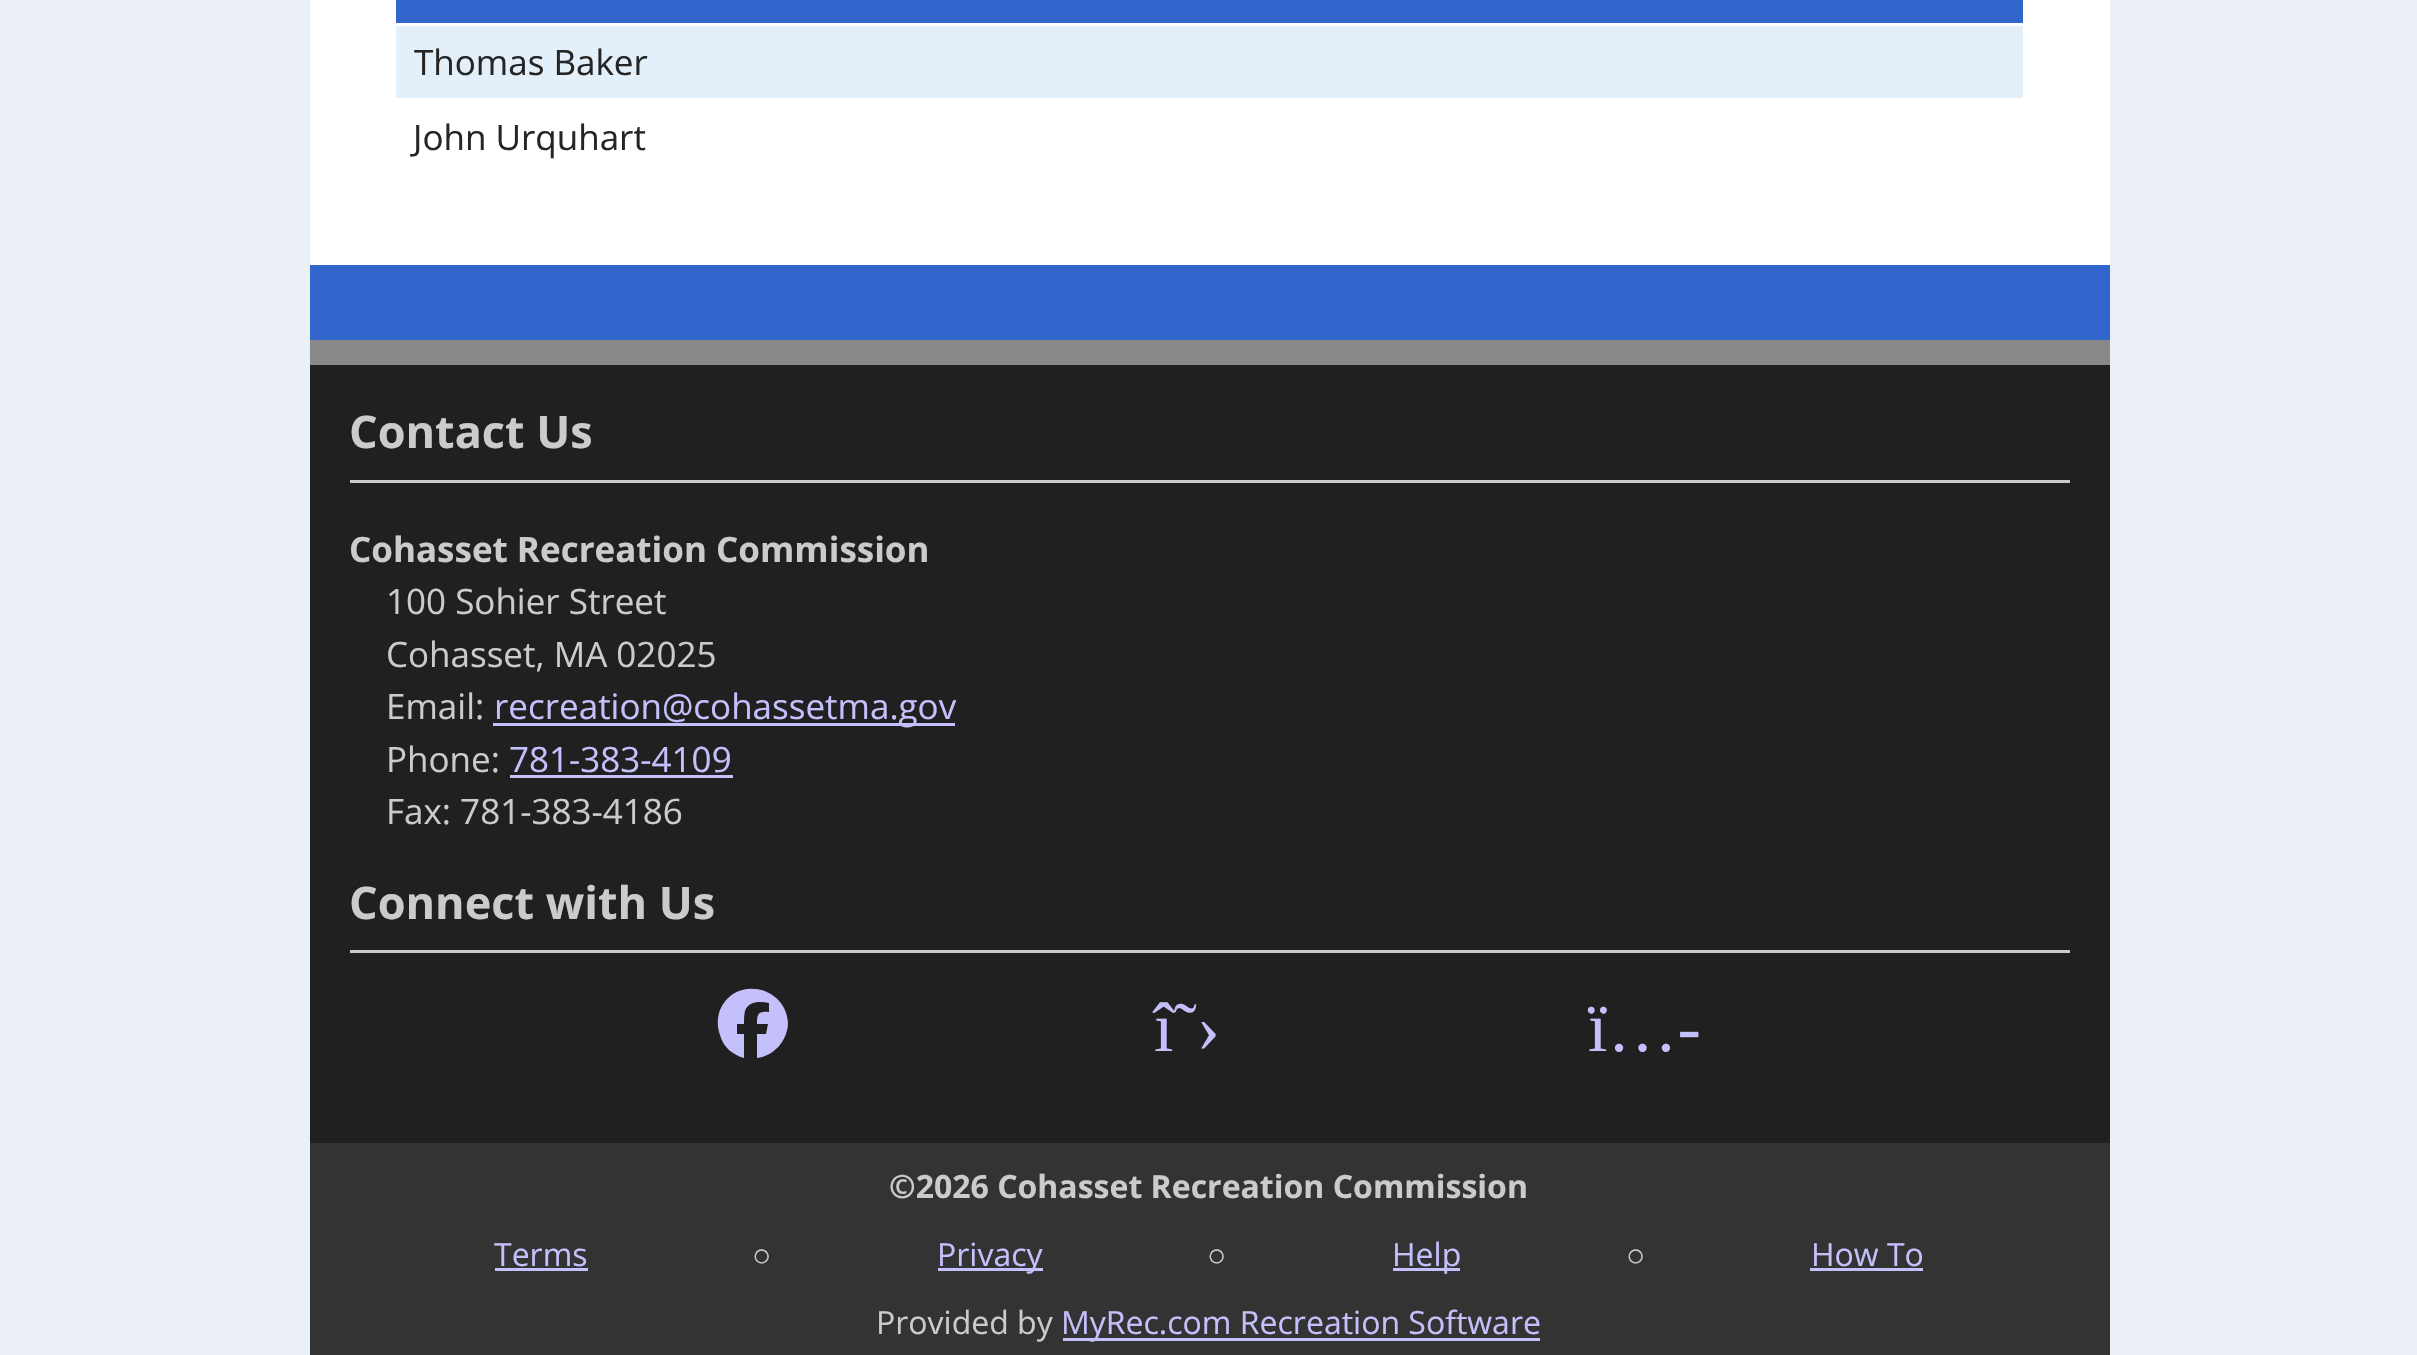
static SkFont makeFont(const char* family, int weight, float size, bool italic = false) {
  SkFontStyle style(weight, SkFontStyle::kNormal_Width,
    italic ? SkFontStyle::kItalic_Slant : SkFontStyle::kUpright_Slant);
  SkFont result(fontMgr->matchFamilyStyle(family, style), size);
  result.setSubpixel(true);
  return result;
}

static void text(SkCanvas* c, const char* s, float x, float y, const SkFont& font, SkColor color) {
  SkPaint ink(SkColor4f::FromColor(color));
  ink.setAntiAlias(true);
  c->drawString(s, x, y, font, ink);
}

static void box(SkCanvas* c, float l, float t, float r, float b, SkColor color) {
  SkPaint ink(SkColor4f::FromColor(color));
  ink.setAntiAlias(true);
  c->drawRect(SkRect::MakeLTRB(l, t, r, b), ink);
}

void draw(SkCanvas* c) {
  SkPaint paint;
  paint.setAntiAlias(true);
  c->clear(0xffeaf0f5);
  box(c, 310, 0, 2110, 265, 0xffffffff);
  box(c, 396, 0, 2023, 23, 0xff3366cc);
  box(c, 396, 26, 2023, 98, 0xffe4f0f9);
  SkFont face1 = makeFont("Open Sans", 400, 35);
  text(c, "Thomas Baker", 414, 75, face1, 0xff252525);
  text(c, "John Urquhart", 413, 150, face1, 0xff252525);
  box(c, 310, 265, 2110, 340, 0xff3366cc);
  box(c, 310, 365, 2110, 1143, 0xff202020);
  box(c, 310, 340, 2110, 365, 0xff898989);
  box(c, 350, 480, 2070, 483, 0xffcbcbcb);
  SkFont face2 = makeFont("Open Sans", 700, 45);
  text(c, "Contact Us", 349, 448, face2, 0xffcbcbcb);
  SkFont face3 = makeFont("Open Sans", 700, 35);
  text(c, "Cohasset Recreation Commission", 349, 562, face3, 0xffcbcbcb);
  text(c, "100 Sohier Street", 386, 614, face1, 0xffcbcbcb);
  text(c, "Cohasset, MA 02025", 386, 667, face1, 0xffcbcbcb);
  text(c, "Email:", 386, 719, face1, 0xffcbcbcb);
  box(c, 493, 723, 955, 726, 0xffc4c0fb);
  text(c, "recreation@cohassetma.gov", 494, 719, face1, 0xffc4c0fb);
  text(c, "Phone:", 386, 772, face1, 0xffcbcbcb);
  text(c, "781-383-4109", 509, 772, face1, 0xffc4c0fb);
  box(c, 510, 775, 733, 778, 0xffc4c0fb);
  text(c, "Fax: 781-383-4186", 386, 824, face1, 0xffcbcbcb);
  box(c, 350, 950, 2070, 953, 0xffcbcbcb);
  text(c, "Connect with Us", 349, 919, face2, 0xffcbcbcb);
  paint.setColor(0xffc4c0fb);
  c->drawPath(SkPathBuilder().moveTo(788, 1024).cubicTo(787, 986, 735, 975, 720, 1010).cubicTo(717, 1018, 717, 1027, 720, 1035).cubicTo(723, 1047, 733, 1055, 744, 1058).lineTo(744, 1034).lineTo(737, 1034).lineTo(737, 1024).lineTo(744, 1024).cubicTo(744, 1020, 744, 1015, 745, 1011).cubicTo(748, 1001, 760, 1001, 769, 1003).lineTo(769, 1012).cubicTo(758, 1011, 757, 1014, 757, 1024).lineTo(768, 1024).lineTo(766, 1034).lineTo(757, 1034).lineTo(757, 1058).cubicTo(774, 1056, 787, 1041, 788, 1024).close().detach(), paint);
  SkFont face4 = makeFont("Liberation Serif", 400, 70);
  text(c, "î˜›", 1154, 1051, face4, 0xffc4c0fb);
  text(c, "ï…-", 1588, 1051, face4, 0xffc4c0fb);
  box(c, 310, 1143, 2110, 1355, 0xff333333);
  SkFont face5 = makeFont("Open Sans", 700, 32);
  text(c, "©2026 Cohasset Recreation Commission", 889, 1198, face5, 0xffcbcbcb);
  SkFont face6 = makeFont("Open Sans", 400, 32);
  text(c, "Terms", 494, 1266, face6, 0xffc4c0fb);
  box(c, 495, 1268, 588, 1271, 0xffc4c0fb);
  SkFont face7 = makeFont("Liberation Serif", 400, 32);
  text(c, "○", 752, 1266, face7, 0xffcbcbcb);
  box(c, 938, 1268, 1043, 1271, 0xffc4c0fb);
  text(c, "Privacy", 937, 1266, face6, 0xffc4c0fb);
  text(c, "○", 1207, 1266, face7, 0xffcbcbcb);
  box(c, 1393, 1268, 1460, 1271, 0xffc4c0fb);
  text(c, "Help", 1392, 1266, face6, 0xffc4c0fb);
  text(c, "○", 1626, 1266, face7, 0xffcbcbcb);
  text(c, "How To", 1811, 1266, face6, 0xffc4c0fb);
  box(c, 1810, 1268, 1923, 1271, 0xffc4c0fb);
  text(c, "Provided by", 876, 1334, face6, 0xffcbcbcb);
  box(c, 1063, 1338, 1540, 1341, 0xffc4c0fb);
  text(c, "MyRec.com Recreation Software", 1061, 1334, face6, 0xffc4c0fb);
}
